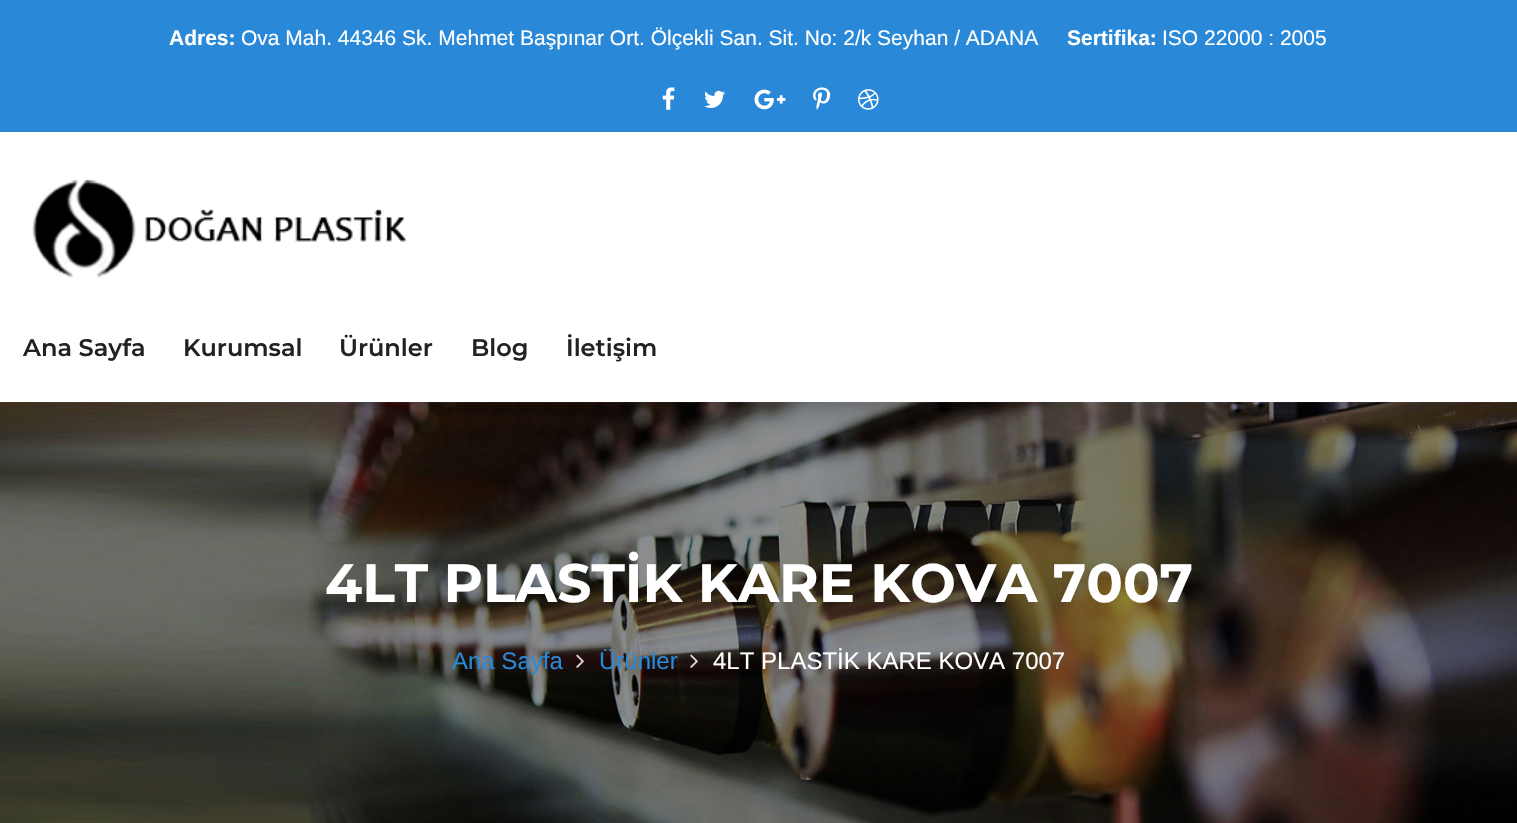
static SkFont makeFont(const char* family, int weight, float size, bool italic = false) {
  SkFontStyle style(weight, SkFontStyle::kNormal_Width,
    italic ? SkFontStyle::kItalic_Slant : SkFontStyle::kUpright_Slant);
  SkFont result(fontMgr->matchFamilyStyle(family, style), size);
  result.setSubpixel(true);
  return result;
}

static void text(SkCanvas* c, const char* s, float x, float y, const SkFont& font, SkColor color) {
  SkPaint ink(SkColor4f::FromColor(color));
  ink.setAntiAlias(true);
  c->drawString(s, x, y, font, ink);
}

static void box(SkCanvas* c, float l, float t, float r, float b, SkColor color) {
  SkPaint ink(SkColor4f::FromColor(color));
  ink.setAntiAlias(true);
  c->drawRect(SkRect::MakeLTRB(l, t, r, b), ink);
}

static void picture(SkCanvas* c, const char* path, float l, float t, float r, float b) {
  auto image = SkImages::DeferredFromEncodedData(SkData::MakeFromFileName(path));
  c->drawImageRect(image, SkRect::MakeLTRB(l, t, r, b), SkSamplingOptions());
}

void draw(SkCanvas* c) {
  SkPaint paint;
  paint.setAntiAlias(true);
  c->clear(0xffffffff);
  box(c, 0, 0, 1517, 132, 0xff2989d8);
  SkFont face1 = makeFont("Arimo", 700, 21);
  text(c, "Adres:", 169, 45, face1, 0xffffffff);
  SkFont face2 = makeFont("Arimo", 400, 21);
  text(c, "Ova Mah. 44346 Sk. Mehmet Başpınar Ort. Ölçekli San. Sit. No: 2/k Seyhan / ADANA", 241, 45, face2, 0xffffffff);
  text(c, "Sertifika:", 1067, 45, face1, 0xffffffff);
  text(c, "ISO 22000 : 2005", 1162, 45, face2, 0xffffffff);
  picture(c, "img_01.png", 662, 87, 675, 110);
  picture(c, "img_02.png", 704, 90, 725, 108);
  picture(c, "img_03.png", 754, 89, 786, 110);
  picture(c, "img_04.png", 813, 87, 831, 110);
  picture(c, "img_05.png", 858, 89, 879, 110);
  picture(c, "img_06.png", 32, 179, 407, 278);
  SkFont face3 = makeFont("Montserrat", 600, 24);
  text(c, "Ana Sayfa", 23, 356, face3, 0xff222222);
  text(c, "Kurumsal", 183, 356, face3, 0xff222222);
  text(c, "Ürünler", 339, 356, face3, 0xff222222);
  text(c, "Blog", 471, 356, face3, 0xff222222);
  text(c, "İletişim", 566, 356, face3, 0xff222222);
  picture(c, "img_07.png", 0, 402, 1517, 823);
  SkFont face4 = makeFont("Montserrat", 700, 54);
  text(c, "4LT PLASTİK KARE KOVA 7007", 325, 602, face4, 0xffffffff);
  SkFont face5 = makeFont("Arimo", 400, 24);
  text(c, "Ana Sayfa", 452, 669, face5, 0xff2989d8);
  picture(c, "img_08.png", 576, 654, 584, 668);
  text(c, "Ürünler", 599, 669, face5, 0xff2989d8);
  picture(c, "img_09.png", 690, 654, 698, 668);
  text(c, "4LT PLASTİK KARE KOVA 7007", 713, 669, face5, 0xffffffff);
}
